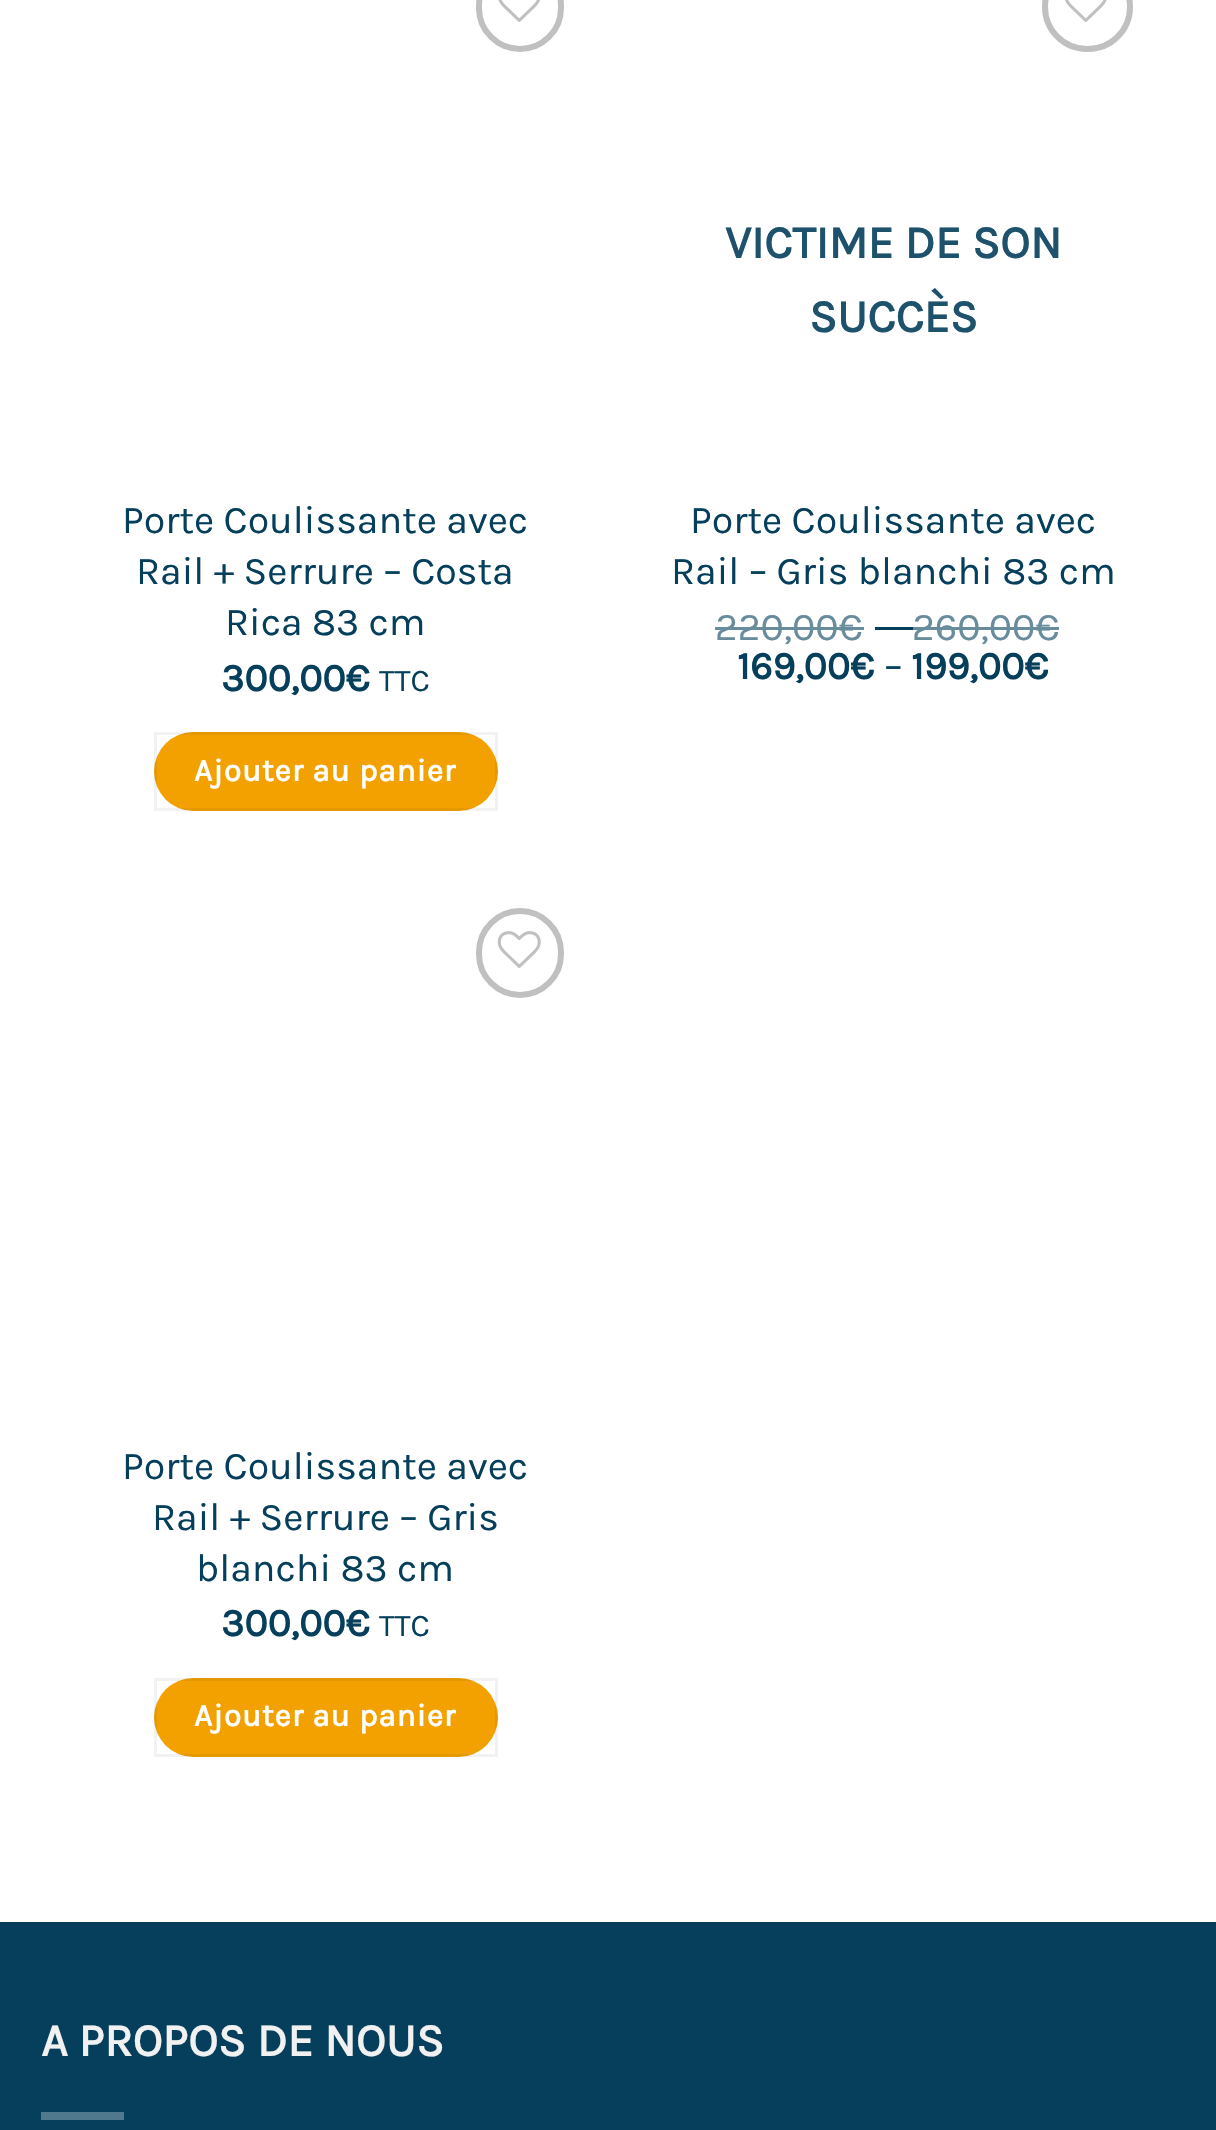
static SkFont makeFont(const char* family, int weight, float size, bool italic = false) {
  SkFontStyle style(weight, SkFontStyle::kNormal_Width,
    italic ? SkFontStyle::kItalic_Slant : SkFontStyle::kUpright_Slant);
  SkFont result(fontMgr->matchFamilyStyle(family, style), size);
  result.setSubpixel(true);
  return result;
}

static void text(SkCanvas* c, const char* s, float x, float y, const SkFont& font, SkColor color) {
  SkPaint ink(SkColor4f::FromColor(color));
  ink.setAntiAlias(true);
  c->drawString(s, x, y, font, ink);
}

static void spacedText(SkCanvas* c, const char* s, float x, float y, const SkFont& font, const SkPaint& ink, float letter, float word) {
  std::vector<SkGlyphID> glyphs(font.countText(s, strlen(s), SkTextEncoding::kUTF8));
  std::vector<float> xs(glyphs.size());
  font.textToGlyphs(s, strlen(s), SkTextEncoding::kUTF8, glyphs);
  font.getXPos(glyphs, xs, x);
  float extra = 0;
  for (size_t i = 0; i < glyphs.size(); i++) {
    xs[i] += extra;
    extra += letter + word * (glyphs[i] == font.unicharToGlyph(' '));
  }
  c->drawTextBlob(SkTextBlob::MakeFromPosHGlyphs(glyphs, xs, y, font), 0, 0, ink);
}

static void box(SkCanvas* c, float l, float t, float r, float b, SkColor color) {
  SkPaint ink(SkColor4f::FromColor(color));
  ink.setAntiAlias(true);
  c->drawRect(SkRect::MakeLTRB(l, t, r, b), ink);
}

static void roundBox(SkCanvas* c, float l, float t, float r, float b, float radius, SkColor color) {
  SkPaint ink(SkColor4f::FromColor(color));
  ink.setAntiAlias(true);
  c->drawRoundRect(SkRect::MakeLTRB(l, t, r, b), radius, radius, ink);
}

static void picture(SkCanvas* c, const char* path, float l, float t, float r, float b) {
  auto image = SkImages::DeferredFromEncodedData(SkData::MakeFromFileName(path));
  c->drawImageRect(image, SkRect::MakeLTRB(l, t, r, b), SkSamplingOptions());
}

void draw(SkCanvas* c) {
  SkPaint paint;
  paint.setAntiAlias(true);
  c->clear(0xffffffff);
  paint.setStyle(SkPaint::kStroke_Style);
  paint.setStrokeWidth(6);
  paint.setColor(0xffc0c0c0);
  c->drawRoundRect(SkRect::MakeLTRB(479, -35, 561, 49), 41, 41, paint);
  picture(c, "img_01.png", 498, 0, 540, 22);
  SkFont face1 = makeFont("Karla", 400, 39.25f);
  text(c, "Porte Coulissante avec", 122, 533, face1, 0xff053f5c);
  text(c, "Rail + Serrure – Costa", 136, 584, face1, 0xff053f5c);
  text(c, "Rica 83 cm", 225, 635, face1, 0xff053f5c);
  SkFont face2 = makeFont("Karla", 700, 39.25f);
  text(c, "300,00€", 221, 691, face2, 0xff053f5c);
  SkFont face3 = makeFont("Karla", 400, 31.5f);
  text(c, "TTC", 379, 691, face3, 0xff053f5c);
  roundBox(c, 154, 732, 498, 811, 39.5f, 0xfff2a100);
  paint.setStrokeWidth(3);
  paint.setColor(0x0d000000);
  c->drawRect(SkRect::MakeLTRB(155.5f, 733.5f, 496.5f, 809.5f), paint);
  SkFont face4 = makeFont("Karla", 700, 31.5f);
  paint.setStyle(SkPaint::kFill_Style);
  paint.setColor(0xffffffff);
  spacedText(c, "Ajouter au panier", 194, 781, face4, paint, 0.9f, 0);
  paint.setStyle(SkPaint::kStroke_Style);
  paint.setStrokeWidth(6);
  paint.setColor(0xffc0c0c0);
  c->drawRoundRect(SkRect::MakeLTRB(1045, -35, 1130, 49), 42, 42, paint);
  picture(c, "img_02.png", 1065, 0, 1107, 22);
  SkFont face5 = makeFont("Karla", 700, 46.25f);
  text(c, "VICTIME DE SON", 725, 258, face5, 0xff1e526c);
  text(c, "SUCCÈS", 809, 332, face5, 0xff1e526c);
  text(c, "Porte Coulissante avec", 690, 533, face1, 0xff053f5c);
  text(c, "Rail – Gris blanchi 83 cm", 671, 584, face1, 0xff053f5c);
  text(c, "220,00€", 715, 640, face1, 0xff698c9d);
  box(c, 715, 627, 864, 630, 0xff698c9d);
  text(c, "260,00€", 912, 640, face1, 0xff698c9d);
  box(c, 875, 627, 913, 630, 0xff053f5c);
  box(c, 913, 627, 1059, 630, 0xff698c9d);
  text(c, "169,00€", 737, 679, face2, 0xff053f5c);
  text(c, "–", 884, 679, face1, 0xff053f5c);
  text(c, "199,00€", 911, 679, face2, 0xff053f5c);
  c->drawRoundRect(SkRect::MakeLTRB(479, 911, 561, 995), 41, 41, paint);
  picture(c, "img_03.png", 497, 931, 541, 968);
  text(c, "Porte Coulissante avec", 122, 1479, face1, 0xff053f5c);
  text(c, "Rail + Serrure – Gris", 152, 1530, face1, 0xff053f5c);
  text(c, "blanchi 83 cm", 196, 1581, face1, 0xff053f5c);
  text(c, "300,00€", 221, 1636, face2, 0xff053f5c);
  text(c, "TTC", 379, 1636, face3, 0xff053f5c);
  roundBox(c, 154, 1678, 498, 1757, 39.5f, 0xfff2a100);
  paint.setStrokeWidth(3);
  paint.setColor(0x0d000000);
  c->drawRect(SkRect::MakeLTRB(155.5f, 1679.5f, 496.5f, 1755.5f), paint);
  paint.setStyle(SkPaint::kFill_Style);
  paint.setColor(0xffffffff);
  spacedText(c, "Ajouter au panier", 194, 1726, face4, paint, 0.9f, 0);
  box(c, 0, 1925, 1216, 2130, 0xff053f5c);
  box(c, 0, 1922, 1216, 1925, 0xff053c57);
  text(c, "A PROPOS DE NOUS", 41, 2056, face5, 0xfff1f1f1);
  box(c, 41, 2112, 124, 2120, 0xff50798d);
}
